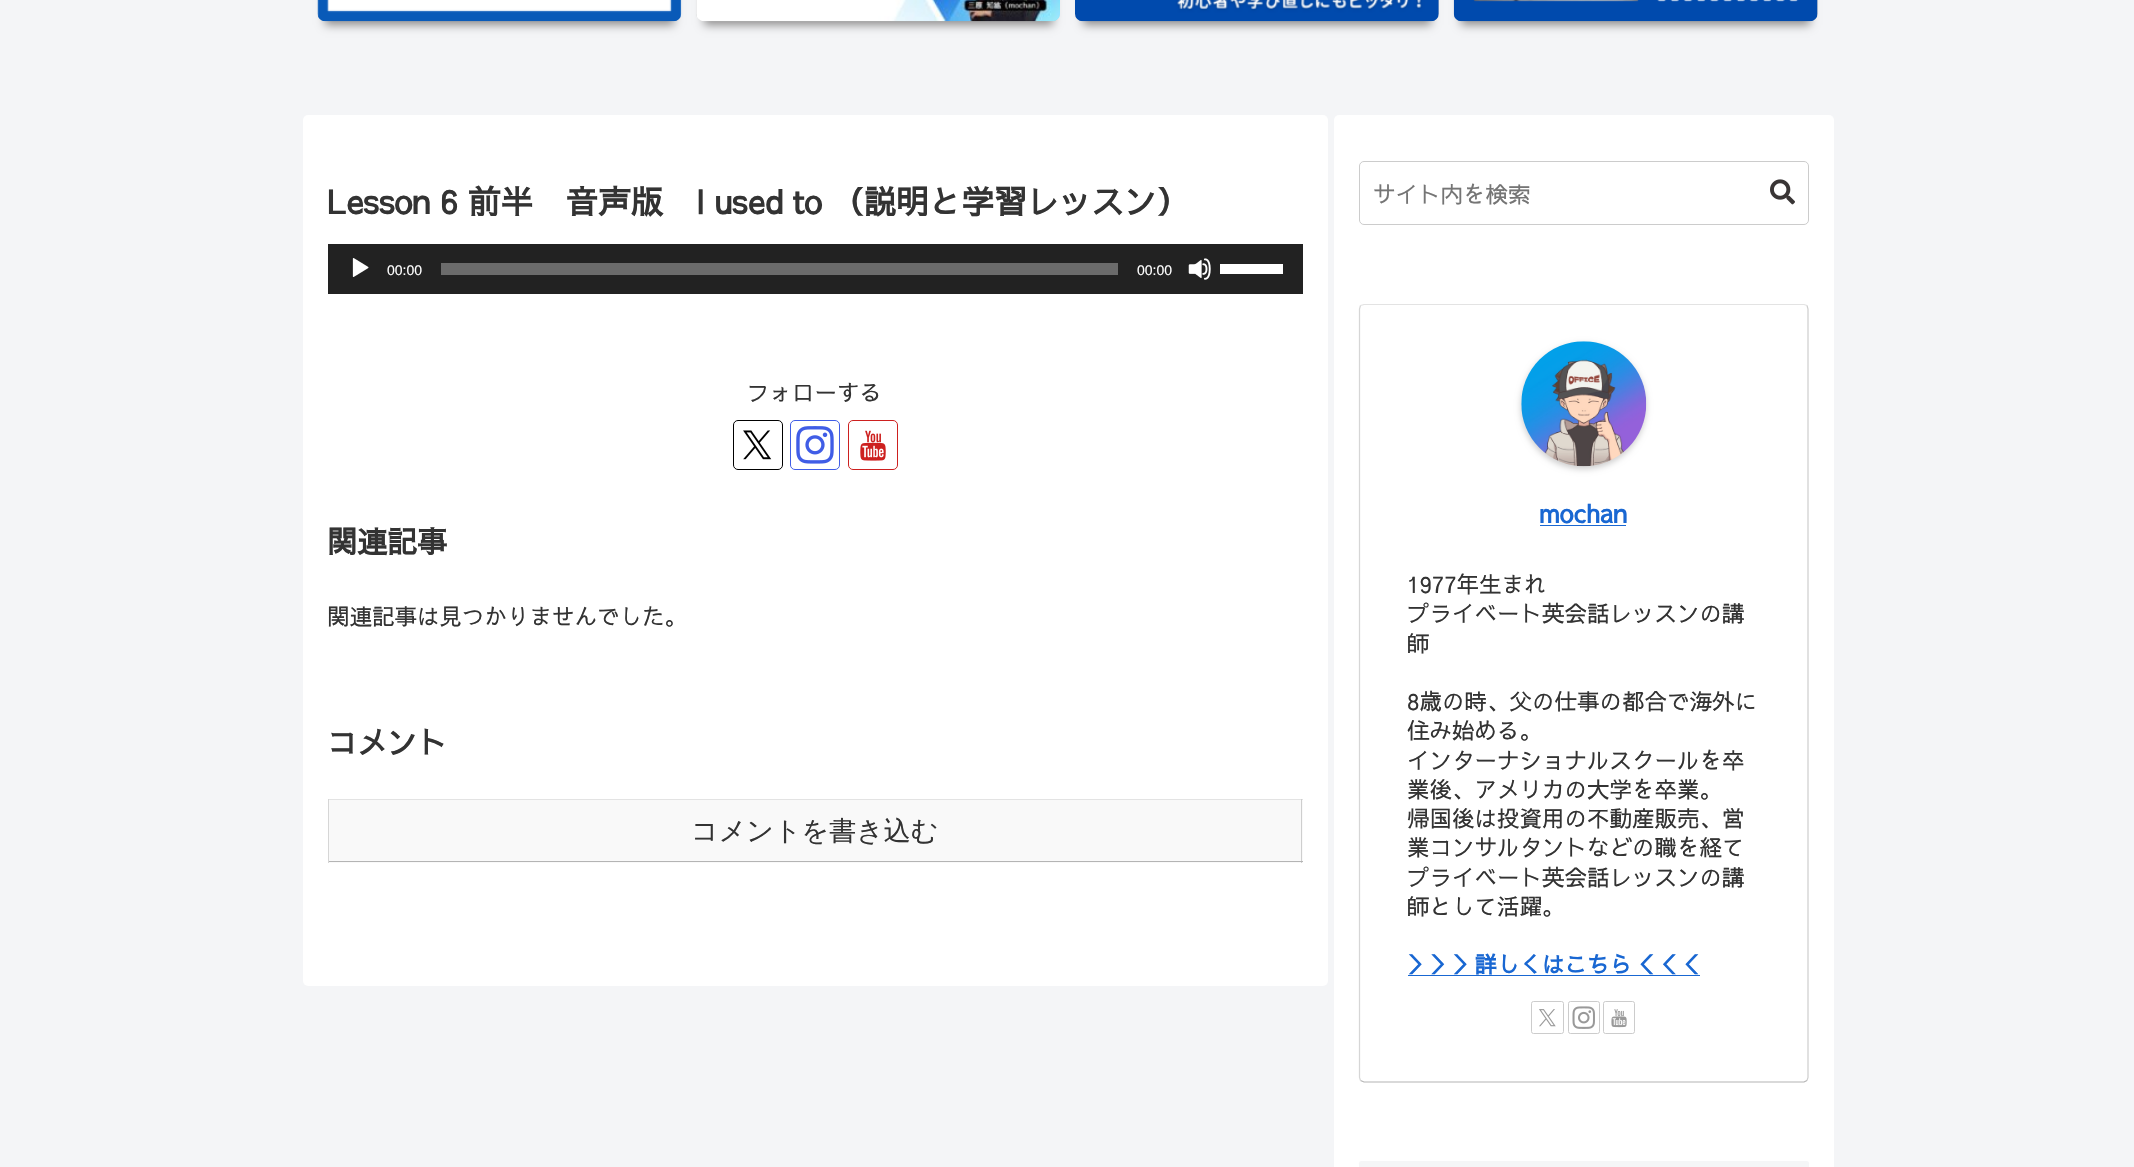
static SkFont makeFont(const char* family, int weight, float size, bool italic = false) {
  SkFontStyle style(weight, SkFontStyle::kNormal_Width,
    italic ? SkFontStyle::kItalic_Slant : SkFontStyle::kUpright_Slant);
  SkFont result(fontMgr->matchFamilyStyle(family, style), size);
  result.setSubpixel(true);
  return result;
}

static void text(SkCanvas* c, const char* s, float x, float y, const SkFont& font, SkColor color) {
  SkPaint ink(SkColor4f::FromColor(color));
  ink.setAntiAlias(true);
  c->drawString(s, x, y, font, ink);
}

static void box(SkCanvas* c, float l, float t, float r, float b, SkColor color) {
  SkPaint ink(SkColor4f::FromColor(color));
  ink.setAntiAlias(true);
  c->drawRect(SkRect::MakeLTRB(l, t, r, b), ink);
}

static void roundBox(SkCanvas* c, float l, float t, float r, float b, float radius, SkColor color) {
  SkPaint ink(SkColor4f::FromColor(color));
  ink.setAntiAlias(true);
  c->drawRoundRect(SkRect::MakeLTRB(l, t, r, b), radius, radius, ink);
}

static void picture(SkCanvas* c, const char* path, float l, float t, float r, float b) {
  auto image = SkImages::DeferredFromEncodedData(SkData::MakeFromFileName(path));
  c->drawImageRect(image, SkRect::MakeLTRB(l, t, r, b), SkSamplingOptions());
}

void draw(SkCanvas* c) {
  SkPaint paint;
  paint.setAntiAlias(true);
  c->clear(0xfff4f5f7);
  paint.setColor(0xff8d8c8c);
  paint.setMaskFilter(SkMaskFilter::MakeBlur(kNormal_SkBlurStyle, 4.5f));
  c->drawRect(SkRect::MakeLTRB(325, -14, 674, 25), paint);
  paint.setMaskFilter(nullptr);
  picture(c, "img_01.png", 317, 0, 682, 22);
  paint.setMaskFilter(SkMaskFilter::MakeBlur(kNormal_SkBlurStyle, 4.5f));
  c->drawRect(SkRect::MakeLTRB(704, -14, 1053, 25), paint);
  paint.setMaskFilter(nullptr);
  c->save();
  c->clipPath(SkPathBuilder().moveTo(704, -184).lineTo(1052, -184).cubicTo(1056.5f, -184, 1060, -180.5f, 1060, -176).lineTo(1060, 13).cubicTo(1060, 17.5f, 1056.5f, 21, 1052, 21).lineTo(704, 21).cubicTo(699.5f, 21, 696, 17.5f, 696, 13).lineTo(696, -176).cubicTo(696, -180.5f, 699.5f, -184, 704, -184).close().detach(), true);
  paint.setColor(0x33000000);
  paint.setMaskFilter(SkMaskFilter::MakeBlur(kNormal_SkBlurStyle, 3));
  c->drawRect(SkRect::MakeLTRB(696, -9, 1060, 24), paint);
  paint.setMaskFilter(nullptr);
  c->restore();
  picture(c, "img_02.png", 696, 0, 1060, 22);
  paint.setColor(0xff8d8c8c);
  paint.setMaskFilter(SkMaskFilter::MakeBlur(kNormal_SkBlurStyle, 4.5f));
  c->drawRect(SkRect::MakeLTRB(1083, -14, 1431, 25), paint);
  paint.setMaskFilter(nullptr);
  c->save();
  c->clipPath(SkPathBuilder().moveTo(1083, -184).lineTo(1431, -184).cubicTo(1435.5f, -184, 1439, -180.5f, 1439, -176).lineTo(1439, 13).cubicTo(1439, 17.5f, 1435.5f, 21, 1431, 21).lineTo(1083, 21).cubicTo(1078.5f, 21, 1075, 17.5f, 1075, 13).lineTo(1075, -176).cubicTo(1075, -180.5f, 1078.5f, -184, 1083, -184).close().detach(), true);
  paint.setColor(0x33000000);
  paint.setMaskFilter(SkMaskFilter::MakeBlur(kNormal_SkBlurStyle, 3));
  c->drawRect(SkRect::MakeLTRB(1075, -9, 1439, 24), paint);
  paint.setMaskFilter(nullptr);
  c->restore();
  picture(c, "img_03.png", 1075, 0, 1439, 22);
  paint.setColor(0xff8d8c8c);
  paint.setMaskFilter(SkMaskFilter::MakeBlur(kNormal_SkBlurStyle, 4.5f));
  c->drawRect(SkRect::MakeLTRB(1461, -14, 1810, 25), paint);
  paint.setMaskFilter(nullptr);
  c->save();
  c->clipPath(SkPathBuilder().moveTo(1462, -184).lineTo(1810, -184).cubicTo(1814.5f, -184, 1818, -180.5f, 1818, -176).lineTo(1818, 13).cubicTo(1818, 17.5f, 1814.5f, 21, 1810, 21).lineTo(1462, 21).cubicTo(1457.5f, 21, 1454, 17.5f, 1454, 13).lineTo(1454, -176).cubicTo(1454, -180.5f, 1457.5f, -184, 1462, -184).close().detach(), true);
  paint.setColor(0x33000000);
  paint.setMaskFilter(SkMaskFilter::MakeBlur(kNormal_SkBlurStyle, 3));
  c->drawRect(SkRect::MakeLTRB(1454, -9, 1818, 24), paint);
  paint.setMaskFilter(nullptr);
  c->restore();
  picture(c, "img_04.png", 1453, 0, 1818, 22);
  roundBox(c, 303, 115, 1328, 986, 5, 0xffffffff);
  SkFont face1 = makeFont("Sawarabi Gothic", 700, 32.5f);
  text(c, "Lesson 6 前半　音声版　I used to （説明と学習レッスン）", 327, 214, face1, 0xff333333);
  box(c, 328, 244, 1303, 294, 0xff222222);
  picture(c, "img_05.png", 352, 258, 369, 277);
  SkFont face2 = makeFont("Liberation Sans", 400, 14);
  text(c, "00:00", 387, 275, face2, 0xffffffff);
  box(c, 441, 263, 1118, 275, 0xff6b6b6b);
  text(c, "00:00", 1137, 275, face2, 0xffffffff);
  picture(c, "img_06.png", 1188, 258, 1211, 280);
  box(c, 1220, 264, 1283, 274, 0xffffffff);
  SkFont face3 = makeFont("Sawarabi Gothic", 400, 22.5f);
  text(c, "フォローする", 747, 401, face3, 0xff333333);
  paint.setStyle(SkPaint::kStroke_Style);
  paint.setStrokeWidth(1);
  paint.setColor(0xff000000);
  c->drawRoundRect(SkRect::MakeLTRB(733.5f, 420.5f, 782.5f, 469.5f), 4.5f, 4.5f, paint);
  picture(c, "img_07.png", 743, 430, 772, 460);
  paint.setColor(0xff405de6);
  c->drawRoundRect(SkRect::MakeLTRB(790.5f, 420.5f, 839.5f, 469.5f), 4.5f, 4.5f, paint);
  picture(c, "img_08.png", 796, 426, 834, 464);
  paint.setColor(0xffcd201f);
  c->drawRoundRect(SkRect::MakeLTRB(848.5f, 420.5f, 897.5f, 469.5f), 4.5f, 4.5f, paint);
  picture(c, "img_09.png", 860, 430, 886, 461);
  SkFont face4 = makeFont("Sawarabi Gothic", 700, 30);
  text(c, "関連記事", 327, 553, face4, 0xff333333);
  text(c, "関連記事は見つかりませんでした。", 327, 625, face3, 0xff333333);
  text(c, "コメント", 327, 754, face4, 0xff333333);
  box(c, 329, 800, 1303, 863, 0xfff9f9f9);
  box(c, 328, 799, 1303, 800, 0xffe3e3e3);
  box(c, 1301, 799, 1302, 863, 0xffcecece);
  box(c, 328, 861, 1303, 862, 0xffb4b4b4);
  box(c, 328, 799, 329, 863, 0xffd6d6d6);
  SkFont face5 = makeFont("WenQuanYi Zen Hei", 500, 27);
  text(c, "コメントを書き込む", 691, 840, face5, 0xff333333);
  roundBox(c, 1334, 115, 1834, 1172, 5, 0xffffffff);
  paint.setColor(0xffcccccc);
  c->drawRoundRect(SkRect::MakeLTRB(1359.5f, 161.5f, 1808.5f, 224.5f), 4.5f, 4.5f, paint);
  text(c, "サイト内を検索", 1373, 203, face3, 0xff757575);
  picture(c, "img_10.png", 1770, 179, 1795, 205);
  paint.setStrokeWidth(1.2f);
  paint.setColor(0xffe3e3e3);
  c->drawPath(SkPathBuilder().moveTo(1360.5f, 305.5f).lineTo(1364, 304.5f).lineTo(1804, 304.5f).lineTo(1807, 305.5f).detach(), paint);
  paint.setColor(0xffcecece);
  c->drawPath(SkPathBuilder().moveTo(1807, 305.5f).lineTo(1808, 309).lineTo(1808, 1077.5f).lineTo(1807, 1080.5f).detach(), paint);
  paint.setColor(0xffb4b4b4);
  c->drawPath(SkPathBuilder().moveTo(1807, 1080.5f).lineTo(1804, 1082).lineTo(1364, 1082).lineTo(1360.5f, 1080.5f).detach(), paint);
  paint.setColor(0xffd6d6d6);
  c->drawPath(SkPathBuilder().moveTo(1360.5f, 1080.5f).lineTo(1359.5f, 1077.5f).lineTo(1359.5f, 309).lineTo(1360.5f, 305.5f).detach(), paint);
  paint.setStyle(SkPaint::kFill_Style);
  paint.setColor(0x33000000);
  paint.setMaskFilter(SkMaskFilter::MakeBlur(kNormal_SkBlurStyle, 3));
  c->drawRoundRect(SkRect::MakeLTRB(1521, 344, 1646, 469), 62.5f, 62.5f, paint);
  paint.setMaskFilter(nullptr);
  picture(c, "img_11.png", 1521, 341, 1647, 467);
  SkFont face6 = makeFont("Sawarabi Gothic", 700, 25);
  text(c, "mochan", 1539, 523, face6, 0xff1967d2);
  box(c, 1540, 525, 1626, 526, 0xff1967d2);
  text(c, "1977年生まれ", 1407, 593, face3, 0xff333333);
  text(c, "プライベート英会話レッスンの講", 1407, 622, face3, 0xff333333);
  text(c, "師", 1407, 652, face3, 0xff333333);
  text(c, "8歳の時、父の仕事の都合で海外に", 1407, 710, face3, 0xff333333);
  text(c, "住み始める。", 1407, 739, face3, 0xff333333);
  text(c, "インターナショナルスクールを卒", 1407, 769, face3, 0xff333333);
  text(c, "業後、アメリカの大学を卒業。", 1407, 798, face3, 0xff333333);
  text(c, "帰国後は投資用の不動産販売、営", 1407, 827, face3, 0xff333333);
  text(c, "業コンサルタントなどの職を経て", 1407, 856, face3, 0xff333333);
  text(c, "プライベート英会話レッスンの講", 1407, 886, face3, 0xff333333);
  text(c, "師として活躍。", 1407, 915, face3, 0xff333333);
  SkFont face7 = makeFont("Sawarabi Gothic", 700, 22.5f);
  text(c, "＞＞＞詳しくはこちら＜＜＜", 1407, 973, face7, 0xff1967d2);
  box(c, 1408, 975, 1700, 976, 0xff1967d2);
  paint.setStyle(SkPaint::kStroke_Style);
  paint.setStrokeWidth(1);
  paint.setColor(0xffcccccc);
  c->drawRoundRect(SkRect::MakeLTRB(1531.5f, 1001.5f, 1563.5f, 1033.5f), 2, 2, paint);
  picture(c, "img_12.png", 1539, 1009, 1556, 1027);
  c->drawRoundRect(SkRect::MakeLTRB(1568.5f, 1001.5f, 1599.5f, 1033.5f), 2, 2, paint);
  picture(c, "img_13.png", 1572, 1006, 1595, 1029);
  c->drawRoundRect(SkRect::MakeLTRB(1603.5f, 1001.5f, 1634.5f, 1033.5f), 2, 2, paint);
  picture(c, "img_14.png", 1611, 1009, 1627, 1028);
  roundBox(c, 1359, 1161, 1809, 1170, 2.5f, 0xfff5f6f7);
}
